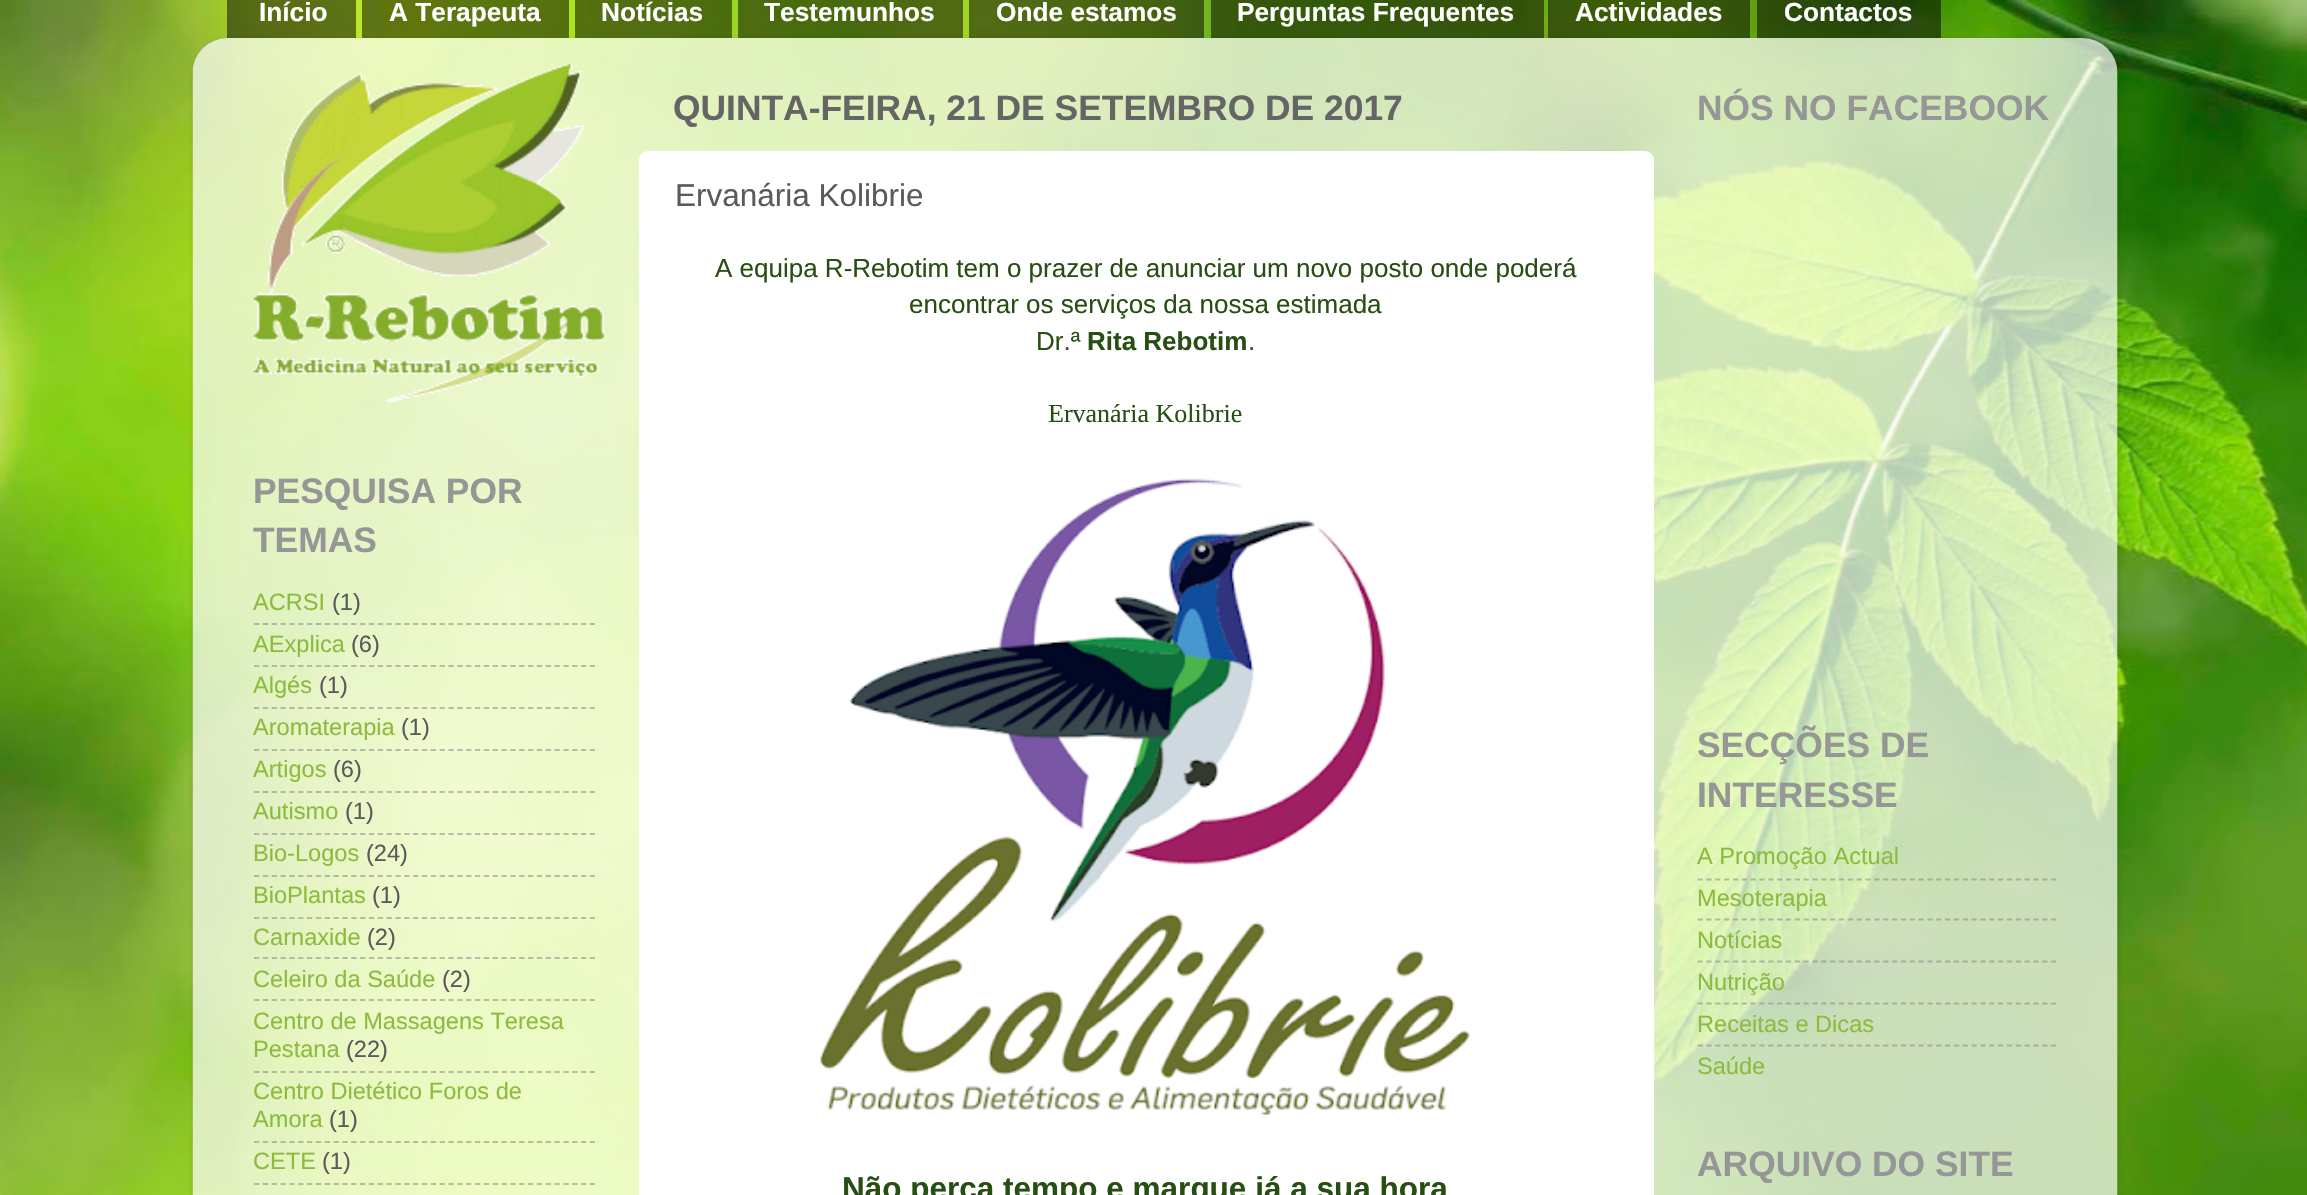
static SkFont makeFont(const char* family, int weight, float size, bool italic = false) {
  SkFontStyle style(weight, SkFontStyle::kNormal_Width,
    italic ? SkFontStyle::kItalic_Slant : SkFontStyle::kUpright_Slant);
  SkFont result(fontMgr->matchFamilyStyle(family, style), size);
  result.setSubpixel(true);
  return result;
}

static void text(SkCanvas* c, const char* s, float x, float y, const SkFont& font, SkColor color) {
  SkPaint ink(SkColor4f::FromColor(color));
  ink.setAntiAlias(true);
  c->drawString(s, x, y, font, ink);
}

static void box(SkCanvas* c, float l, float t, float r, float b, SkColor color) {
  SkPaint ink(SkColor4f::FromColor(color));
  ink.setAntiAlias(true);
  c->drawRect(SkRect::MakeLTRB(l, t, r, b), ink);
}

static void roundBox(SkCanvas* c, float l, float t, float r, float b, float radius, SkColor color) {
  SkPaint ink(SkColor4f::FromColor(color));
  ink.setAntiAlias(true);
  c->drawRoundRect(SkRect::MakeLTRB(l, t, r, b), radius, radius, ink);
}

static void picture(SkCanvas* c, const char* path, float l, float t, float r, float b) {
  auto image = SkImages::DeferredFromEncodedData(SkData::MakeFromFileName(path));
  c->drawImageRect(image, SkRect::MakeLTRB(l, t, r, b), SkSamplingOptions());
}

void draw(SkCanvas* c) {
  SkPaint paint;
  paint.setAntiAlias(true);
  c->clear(0xffffffff);
  picture(c, "img_01.png", 0, 0, 2307, 1195);
  box(c, 227, 0, 356, 38, 0x80000000);
  SkFont face1 = makeFont("Liberation Sans", 700, 26.25f);
  text(c, "Início", 259, 21, face1, 0xffffffff);
  box(c, 362, 0, 569, 38, 0x80000000);
  text(c, "A Terapeuta", 389, 21, face1, 0xffffffff);
  box(c, 575, 0, 732, 38, 0x80000000);
  text(c, "Notícias", 601, 21, face1, 0xffffffff);
  box(c, 738, 0, 963, 38, 0x80000000);
  text(c, "Testemunhos", 764, 21, face1, 0xffffffff);
  box(c, 969, 0, 1204, 38, 0x80000000);
  text(c, "Onde estamos", 996, 21, face1, 0xffffffff);
  box(c, 1211, 0, 1544, 38, 0x80000000);
  text(c, "Perguntas Frequentes", 1237, 21, face1, 0xffffffff);
  box(c, 1548, 0, 1750, 38, 0x80000000);
  text(c, "Actividades", 1575, 21, face1, 0xffffffff);
  box(c, 1757, 0, 1941, 38, 0x80000000);
  text(c, "Contactos", 1784, 21, face1, 0xffffffff);
  c->save();
  c->clipPath(SkPathBuilder(SkPathFillType::kEvenOdd).moveTo(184, 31).lineTo(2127, 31).lineTo(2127, 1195).lineTo(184, 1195).close().moveTo(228, 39).lineTo(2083, 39).cubicTo(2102.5f, 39, 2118, 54.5f, 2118, 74).lineTo(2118, 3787).lineTo(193, 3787).lineTo(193, 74).cubicTo(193, 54.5f, 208.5f, 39, 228, 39).close().detach(), true);
  paint.setColor(0x26000000);
  paint.setMaskFilter(SkMaskFilter::MakeBlur(kNormal_SkBlurStyle, 2.5f));
  c->drawRoundRect(SkRect::MakeLTRB(193, 40, 2118, 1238), 35, 35, paint);
  paint.setMaskFilter(nullptr);
  c->restore();
  picture(c, "img_02.png", 192, 38, 2118, 1195);
  picture(c, "img_03.png", 253, 64, 604, 402);
  SkFont face2 = makeFont("Liberation Sans", 700, 35.4f);
  text(c, "PESQUISA POR", 253, 503, face2, 0xff969696);
  text(c, "TEMAS", 253, 552, face2, 0xff969696);
  SkFont face3 = makeFont("Liberation Sans", 400, 23.6f);
  text(c, "ACRSI", 253, 610, face3, 0xff8dbb3e);
  text(c, "(1)", 332, 610, face3, 0xff5b5959);
  paint.setStyle(SkPaint::kStroke_Style);
  paint.setStrokeWidth(1.8f);
  paint.setColor(0x80808080);
  paint.setPathEffect(SkDashPathEffect::Make({{5.25f, 3.59f}}, 0));
  c->drawPath(SkPathBuilder().moveTo(254, 624).lineTo(595, 624).detach(), paint);
  paint.setPathEffect(nullptr);
  text(c, "AExplica", 253, 652, face3, 0xff8dbb3e);
  text(c, "(6)", 351, 652, face3, 0xff5b5959);
  paint.setPathEffect(SkDashPathEffect::Make({{5.25f, 3.59f}}, 0));
  c->drawPath(SkPathBuilder().moveTo(254, 666).lineTo(595, 666).detach(), paint);
  paint.setPathEffect(nullptr);
  text(c, "Algés", 253, 693, face3, 0xff8dbb3e);
  text(c, "(1)", 319, 693, face3, 0xff5b5959);
  paint.setPathEffect(SkDashPathEffect::Make({{5.25f, 3.59f}}, 0));
  c->drawPath(SkPathBuilder().moveTo(254, 708).lineTo(595, 708).detach(), paint);
  paint.setPathEffect(nullptr);
  text(c, "Aromaterapia", 253, 735, face3, 0xff8dbb3e);
  text(c, "(1)", 401, 735, face3, 0xff5b5959);
  paint.setPathEffect(SkDashPathEffect::Make({{5.25f, 3.59f}}, 0));
  c->drawPath(SkPathBuilder().moveTo(254, 750).lineTo(595, 750).detach(), paint);
  paint.setPathEffect(nullptr);
  text(c, "Artigos", 253, 777, face3, 0xff8dbb3e);
  text(c, "(6)", 333, 777, face3, 0xff5b5959);
  paint.setPathEffect(SkDashPathEffect::Make({{5.25f, 3.59f}}, 0));
  c->drawPath(SkPathBuilder().moveTo(254, 792).lineTo(595, 792).detach(), paint);
  paint.setPathEffect(nullptr);
  text(c, "Autismo", 253, 819, face3, 0xff8dbb3e);
  text(c, "(1)", 345, 819, face3, 0xff5b5959);
  paint.setPathEffect(SkDashPathEffect::Make({{5.25f, 3.59f}}, 0));
  c->drawPath(SkPathBuilder().moveTo(254, 834).lineTo(595, 834).detach(), paint);
  paint.setPathEffect(nullptr);
  text(c, "Bio-Logos", 253, 861, face3, 0xff8dbb3e);
  text(c, "(24)", 366, 861, face3, 0xff5b5959);
  paint.setPathEffect(SkDashPathEffect::Make({{5.25f, 3.59f}}, 0));
  c->drawPath(SkPathBuilder().moveTo(254, 876).lineTo(595, 876).detach(), paint);
  paint.setPathEffect(nullptr);
  text(c, "BioPlantas", 253, 903, face3, 0xff8dbb3e);
  text(c, "(1)", 372, 903, face3, 0xff5b5959);
  paint.setPathEffect(SkDashPathEffect::Make({{5.25f, 3.59f}}, 0));
  c->drawPath(SkPathBuilder().moveTo(254, 918).lineTo(595, 918).detach(), paint);
  paint.setPathEffect(nullptr);
  text(c, "Carnaxide", 253, 945, face3, 0xff8dbb3e);
  text(c, "(2)", 367, 945, face3, 0xff5b5959);
  paint.setPathEffect(SkDashPathEffect::Make({{5.25f, 3.59f}}, 0));
  c->drawPath(SkPathBuilder().moveTo(254, 958).lineTo(595, 958).detach(), paint);
  paint.setPathEffect(nullptr);
  text(c, "Celeiro da Saúde", 253, 987, face3, 0xff8dbb3e);
  text(c, "(2)", 442, 987, face3, 0xff5b5959);
  paint.setPathEffect(SkDashPathEffect::Make({{5.25f, 3.59f}}, 0));
  c->drawPath(SkPathBuilder().moveTo(254, 1000).lineTo(595, 1000).detach(), paint);
  paint.setPathEffect(nullptr);
  text(c, "Centro de Massagens Teresa", 253, 1029, face3, 0xff8dbb3e);
  text(c, "Pestana", 253, 1057, face3, 0xff8dbb3e);
  text(c, "(22)", 346, 1057, face3, 0xff5b5959);
  paint.setPathEffect(SkDashPathEffect::Make({{5.25f, 3.59f}}, 0));
  c->drawPath(SkPathBuilder().moveTo(254, 1072).lineTo(595, 1072).detach(), paint);
  paint.setPathEffect(nullptr);
  text(c, "Centro Dietético Foros de", 253, 1099, face3, 0xff8dbb3e);
  text(c, "Amora", 253, 1127, face3, 0xff8dbb3e);
  text(c, "(1)", 329, 1127, face3, 0xff5b5959);
  paint.setPathEffect(SkDashPathEffect::Make({{5.25f, 3.59f}}, 0));
  c->drawPath(SkPathBuilder().moveTo(254, 1142).lineTo(595, 1142).detach(), paint);
  paint.setPathEffect(nullptr);
  text(c, "CETE", 253, 1169, face3, 0xff8dbb3e);
  text(c, "(1)", 322, 1169, face3, 0xff5b5959);
  paint.setPathEffect(SkDashPathEffect::Make({{5.25f, 3.59f}}, 0));
  c->drawPath(SkPathBuilder().moveTo(254, 1184).lineTo(595, 1184).detach(), paint);
  paint.setPathEffect(nullptr);
  text(c, "QUINTA-FEIRA, 21 DE SETEMBRO DE 2017", 673, 120, face2, 0xff656565);
  roundBox(c, 639, 151, 1654, 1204, 9, 0xffffffff);
  SkFont face4 = makeFont("Liberation Sans", 400, 31.5f);
  text(c, "Ervanária Kolibrie", 675, 206, face4, 0xff5b5959);
  SkFont face5 = makeFont("Liberation Sans", 400, 26);
  text(c, "A equipa R-Rebotim tem o prazer de anunciar um novo posto onde poderá", 715, 277, face5, 0xff274e13);
  text(c, "encontrar os serviços da nossa estimada", 909, 313, face5, 0xff274e13);
  text(c, "Dr.ª", 1036, 350, face5, 0xff274e13);
  SkFont face6 = makeFont("Liberation Sans", 700, 26);
  text(c, "Rita Rebotim", 1087, 350, face6, 0xff274e13);
  text(c, ".", 1248, 350, face5, 0xff274e13);
  SkFont face7 = makeFont("Liberation Serif", 400, 26);
  text(c, "Ervanária Kolibrie", 1048, 422, face7, 0xff274e13);
  picture(c, "img_04.png", 819, 478, 1471, 1116);
  SkFont face8 = makeFont("Liberation Sans", 700, 31.5f);
  text(c, "Não perca tempo e marque já a sua hora", 842, 1199, face8, 0xff274e13);
  text(c, "NÓS NO FACEBOOK", 1697, 120, face2, 0xff969696);
  text(c, "SECÇÕES DE", 1697, 757, face2, 0xff969696);
  text(c, "INTERESSE", 1697, 807, face2, 0xff969696);
  text(c, "A Promoção Actual", 1697, 864, face3, 0xff8dbb3e);
  paint.setPathEffect(SkDashPathEffect::Make({{5.25f, 3.59f}}, 0));
  c->drawPath(SkPathBuilder().moveTo(1697.5f, 879.5f).lineTo(2056, 879.5f).detach(), paint);
  paint.setPathEffect(nullptr);
  text(c, "Mesoterapia", 1697, 906, face3, 0xff8dbb3e);
  paint.setPathEffect(SkDashPathEffect::Make({{5.25f, 3.59f}}, 0));
  c->drawPath(SkPathBuilder().moveTo(1697.5f, 919.5f).lineTo(2056, 919.5f).detach(), paint);
  paint.setPathEffect(nullptr);
  text(c, "Notícias", 1697, 948, face3, 0xff8dbb3e);
  paint.setPathEffect(SkDashPathEffect::Make({{5.25f, 3.59f}}, 0));
  c->drawPath(SkPathBuilder().moveTo(1697.5f, 961.5f).lineTo(2056, 961.5f).detach(), paint);
  paint.setPathEffect(nullptr);
  text(c, "Nutrição", 1697, 990, face3, 0xff8dbb3e);
  paint.setPathEffect(SkDashPathEffect::Make({{5.25f, 3.59f}}, 0));
  c->drawPath(SkPathBuilder().moveTo(1697.5f, 1003.5f).lineTo(2056, 1003.5f).detach(), paint);
  paint.setPathEffect(nullptr);
  text(c, "Receitas e Dicas", 1697, 1032, face3, 0xff8dbb3e);
  paint.setPathEffect(SkDashPathEffect::Make({{5.25f, 3.59f}}, 0));
  c->drawPath(SkPathBuilder().moveTo(1697.5f, 1045.5f).lineTo(2056, 1045.5f).detach(), paint);
  paint.setPathEffect(nullptr);
  text(c, "Saúde", 1697, 1074, face3, 0xff8dbb3e);
  text(c, "ARQUIVO DO SITE", 1697, 1176, face2, 0xff969696);
}
